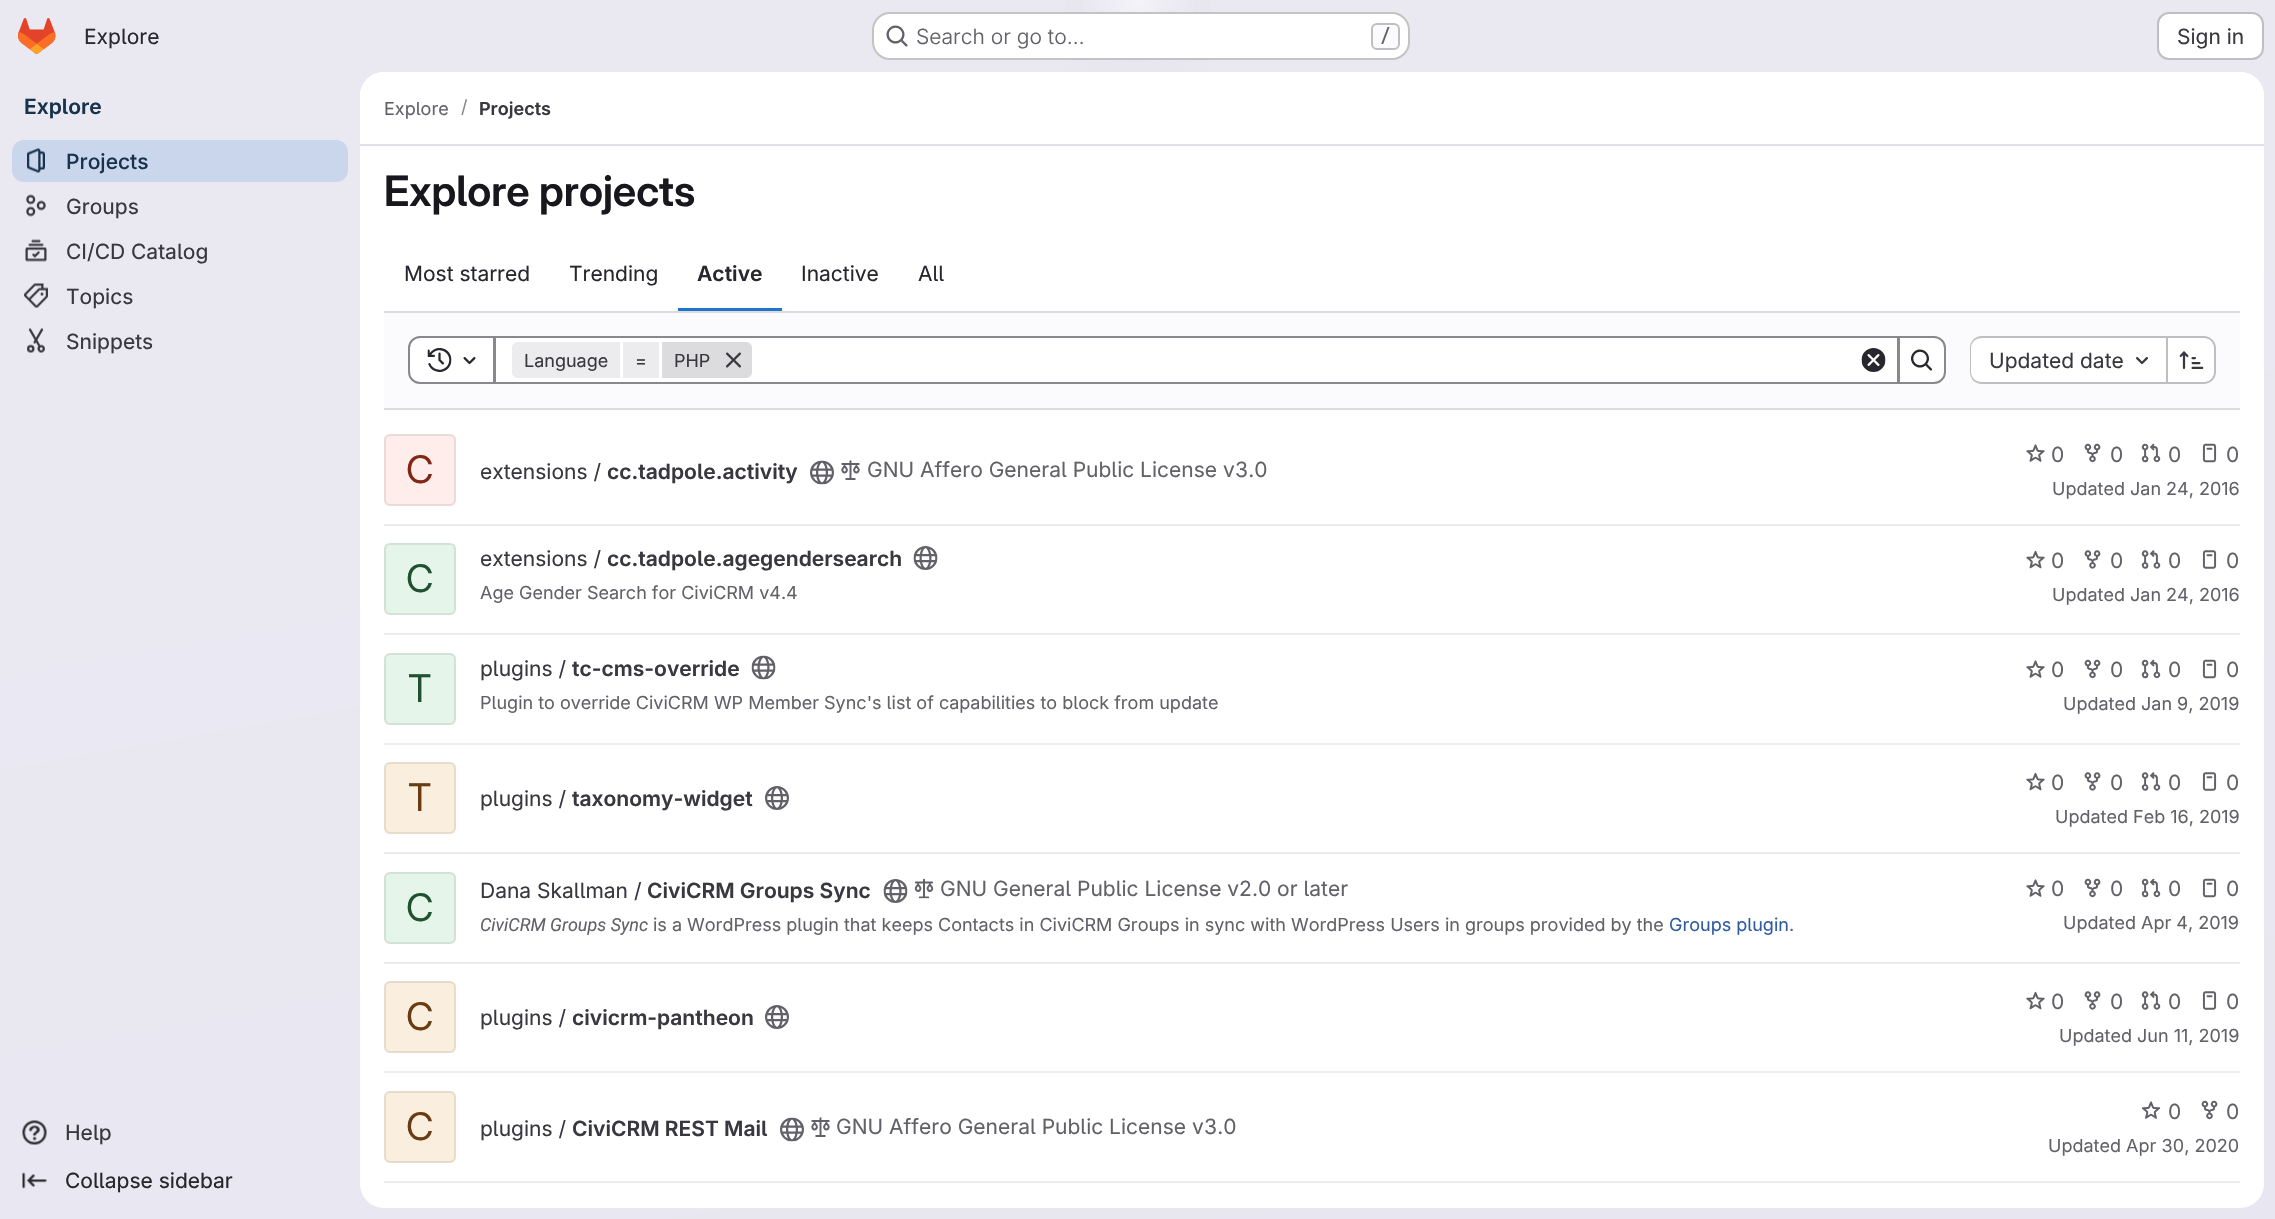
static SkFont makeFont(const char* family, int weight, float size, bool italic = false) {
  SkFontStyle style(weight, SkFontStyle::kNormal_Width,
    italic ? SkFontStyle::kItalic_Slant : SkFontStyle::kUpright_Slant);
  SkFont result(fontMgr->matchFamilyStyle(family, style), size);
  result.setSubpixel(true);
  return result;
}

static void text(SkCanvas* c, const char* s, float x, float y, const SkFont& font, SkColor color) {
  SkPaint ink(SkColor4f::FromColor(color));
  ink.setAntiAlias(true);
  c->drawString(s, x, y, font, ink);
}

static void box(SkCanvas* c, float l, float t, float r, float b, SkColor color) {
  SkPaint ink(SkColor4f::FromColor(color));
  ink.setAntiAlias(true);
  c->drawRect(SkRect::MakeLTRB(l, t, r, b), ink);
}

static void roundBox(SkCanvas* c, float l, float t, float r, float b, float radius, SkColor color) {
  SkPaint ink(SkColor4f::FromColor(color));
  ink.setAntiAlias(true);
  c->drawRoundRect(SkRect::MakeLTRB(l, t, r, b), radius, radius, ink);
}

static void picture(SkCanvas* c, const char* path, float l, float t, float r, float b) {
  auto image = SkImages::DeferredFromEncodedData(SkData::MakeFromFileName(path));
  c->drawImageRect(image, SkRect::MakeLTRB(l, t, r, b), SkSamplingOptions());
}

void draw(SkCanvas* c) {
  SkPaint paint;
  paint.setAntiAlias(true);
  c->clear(0xffffffff);
  {
    const SkColor colors[] = {0xffe8e6f0, 0xffeae9f2};
    const float stops[] = {0, 0.7f};
    const SkPoint ends[] = {{1276, 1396}, {999, -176}};
    paint.setShader(SkGradientShader::MakeLinear(ends, colors, stops, 2, SkTileMode::kClamp));
    paint.setAlpha(255);
  }
  c->drawRect(SkRect::MakeLTRB(0, 0, 2275, 1219), paint);
  {
    const SkColor colors[] = {0xffe4e2ed, 0x00e4e2ed};
    const float stops[] = {0, 0.09f};
    SkMatrix m = SkMatrix::Translate(1138, 0).preScale(1138, 1220);
    paint.setShader(SkGradientShader::MakeRadial({0, 0}, 1, colors, stops, 2, SkTileMode::kClamp, 0, &m));
    paint.setAlpha(255);
  }
  c->drawRect(SkRect::MakeLTRB(1065, 0, 1211, 72), paint);
  {
    const SkColor colors[] = {0xffe4e2ec, 0x00e4e2ec};
    const float stops[] = {0, 0.07f};
    SkMatrix m = SkMatrix::Translate(1138, 0).preScale(1138, 1220);
    paint.setShader(SkGradientShader::MakeRadial({0, 0}, 1, colors, stops, 2, SkTileMode::kClamp, 0, &m));
    paint.setAlpha(255);
  }
  c->drawRect(SkRect::MakeLTRB(1098, 8, 1178, 45), paint);
  {
    const SkColor colors[] = {0x99ffffff, 0x00ffffff};
    const float stops[] = {0, 0.04f};
    paint.setShader(SkGradientShader::MakeRadial({1138, 0}, 1668, colors, stops, 2, SkTileMode::kClamp));
    paint.setAlpha(255);
  }
  c->drawRect(SkRect::MakeLTRB(1082, 0, 1194, 12), paint);
  picture(c, "img_01.png", 18, 18, 56, 54);
  SkFont face1 = makeFont("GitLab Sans", 400, 21);
  text(c, "Explore", 84, 44, face1, 0xff28272d);
  roundBox(c, 872, 12, 1410, 60, 18, 0xffffffff);
  paint.setStyle(SkPaint::kStroke_Style);
  paint.setStrokeWidth(2);
  paint.setShader(nullptr);
  paint.setColor(0x3d050506);
  c->drawRoundRect(SkRect::MakeLTRB(873, 13, 1409, 59), 17, 17, paint);
  picture(c, "img_02.png", 886, 25, 908, 47);
  SkFont face2 = makeFont("GitLab Sans", 300, 21);
  text(c, "Search or go to…", 916, 44, face2, 0xff626168);
  paint.setStyle(SkPaint::kFill_Style);
  paint.setColor(0xfffbfafd);
  c->drawRoundRect(SkRect::MakeLTRB(1372, 24, 1399, 49), 5, 5, paint);
  paint.setStyle(SkPaint::kStroke_Style);
  paint.setColor(0xffbfbfc3);
  c->drawRoundRect(SkRect::MakeLTRB(1372, 24, 1399, 49), 5, 5, paint);
  SkFont face3 = makeFont("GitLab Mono", 500, 18);
  text(c, "/", 1380, 42, face3, 0xff626168);
  paint.setStyle(SkPaint::kFill_Style);
  paint.setColor(0xffffffff);
  c->drawRoundRect(SkRect::MakeLTRB(2158, 13, 2263, 59), 11, 11, paint);
  paint.setStyle(SkPaint::kStroke_Style);
  paint.setColor(0xffbfbfc3);
  c->drawRoundRect(SkRect::MakeLTRB(2158, 13, 2263, 59), 11, 11, paint);
  text(c, "Sign in", 2177, 44, face1, 0xff3a383f);
  SkFont face4 = makeFont("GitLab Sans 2", 600, 21);
  text(c, "Explore", 24, 114, face4, 0xff18334e);
  roundBox(c, 12, 140, 348, 182, 12, 0xffcad6eb);
  picture(c, "img_03.png", 27, 148, 45, 173);
  SkFont face5 = makeFont("GitLab Sans", 500, 21);
  text(c, "Projects", 66, 169, face5, 0xff18334e);
  picture(c, "img_04.png", 26, 194, 46, 217);
  SkFont face6 = makeFont("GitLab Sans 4", 400, 21);
  text(c, "Groups", 66, 214, face6, 0xff3a383f);
  picture(c, "img_05.png", 25, 239, 47, 262);
  text(c, "CI/CD Catalog", 66, 259, face6, 0xff3a383f);
  picture(c, "img_06.png", 24, 283, 48, 308);
  text(c, "Topics", 66, 304, face6, 0xff3a383f);
  picture(c, "img_07.png", 27, 328, 45, 353);
  text(c, "Snippets", 66, 349, face6, 0xff3a383f);
  picture(c, "img_08.png", 22, 1120, 47, 1145);
  text(c, "Help", 65, 1140, face6, 0xff3a383f);
  picture(c, "img_09.png", 22, 1172, 47, 1189);
  text(c, "Collapse sidebar", 65, 1188, face6, 0xff28272d);
  roundBox(c, 360, 72, 2264, 1208, 24, 0xffffffff);
  paint.setStyle(SkPaint::kFill_Style);
  paint.setColor(0xffffffff);
  c->drawPath(SkPathBuilder().moveTo(384, 72).lineTo(2240, 72).cubicTo(2253.5f, 72, 2264, 82.5f, 2264, 96).lineTo(2264, 146).lineTo(360, 146).lineTo(360, 96).cubicTo(360, 82.5f, 370.5f, 72, 384, 72).close().detach(), paint);
  box(c, 360, 144, 2264, 146, 0xffe1dfec);
  SkFont face7 = makeFont("GitLab Sans", 400, 18);
  text(c, "Explore", 384, 115, face7, 0xff626168);
  text(c, "/", 461, 113, face7, 0xff89888d);
  SkFont face8 = makeFont("GitLab Sans 2", 600, 18);
  text(c, "Projects", 479, 115, face8, 0xff3a383f);
  SkFont face9 = makeFont("GitLab Sans", 600, 42);
  text(c, "Explore projects", 384, 206, face9, 0xff18171d);
  text(c, "Most starred", 404, 281, face1, 0xff28272d);
  text(c, "Trending", 569, 281, face1, 0xff28272d);
  text(c, "Active", 697, 281, face4, 0xff28272d);
  box(c, 678, 308, 782, 311, 0xff1f75cb);
  text(c, "Inactive", 801, 281, face1, 0xff28272d);
  text(c, "All", 918, 281, face1, 0xff28272d);
  box(c, 384, 313, 2240, 408, 0xfffbfafd);
  box(c, 384, 311, 2240, 313, 0xffdcdcde);
  box(c, 384, 408, 2240, 410, 0xffdcdcde);
  c->drawRect(SkRect::MakeLTRB(495, 337, 1898, 383), paint);
  paint.setStyle(SkPaint::kStroke_Style);
  paint.setColor(0xff89888d);
  c->drawRect(SkRect::MakeLTRB(495, 337, 1898, 383), paint);
  paint.setStyle(SkPaint::kFill_Style);
  paint.setColor(0xffffffff);
  c->drawPath(SkPathBuilder().moveTo(420, 337).lineTo(494, 337).lineTo(494, 383).lineTo(420, 383).cubicTo(414, 383, 409, 378, 409, 372).lineTo(409, 348).cubicTo(409, 342, 414, 337, 420, 337).close().detach(), paint);
  paint.setStyle(SkPaint::kStroke_Style);
  paint.setColor(0xff89888d);
  c->drawPath(SkPathBuilder().moveTo(420, 337).lineTo(494, 337).lineTo(494, 383).lineTo(420, 383).cubicTo(414, 383, 409, 378, 409, 372).lineTo(409, 348).cubicTo(409, 342, 414, 337, 420, 337).close().detach(), paint);
  picture(c, "img_10.png", 427, 348, 452, 372);
  picture(c, "img_11.png", 463, 357, 476, 365);
  paint.setStyle(SkPaint::kFill_Style);
  paint.setColor(0xffececef);
  c->drawPath(SkPathBuilder().moveTo(518, 342).lineTo(620, 342).lineTo(620, 378).lineTo(518, 378).cubicTo(514.5f, 378, 512, 375.5f, 512, 372).lineTo(512, 348).cubicTo(512, 344.5f, 514.5f, 342, 518, 342).close().detach(), paint);
  text(c, "Language", 524, 367, face7, 0xff3a383f);
  box(c, 623, 342, 659, 378, 0xffececef);
  text(c, "=", 635, 367, face7, 0xff3a383f);
  paint.setColor(0xffdcdcde);
  c->drawPath(SkPathBuilder().moveTo(662, 342).lineTo(746, 342).cubicTo(749.5f, 342, 752, 344.5f, 752, 348).lineTo(752, 372).cubicTo(752, 375.5f, 749.5f, 378, 746, 378).lineTo(662, 378).close().detach(), paint);
  text(c, "PHP", 674, 367, face7, 0xff3a383f);
  picture(c, "img_12.png", 726, 352, 741, 368);
  picture(c, "img_13.png", 1861, 348, 1886, 372);
  paint.setColor(0xffffffff);
  c->drawPath(SkPathBuilder().moveTo(1899, 337).lineTo(1934, 337).cubicTo(1940, 337, 1945, 342, 1945, 348).lineTo(1945, 372).cubicTo(1945, 378, 1940, 383, 1934, 383).lineTo(1899, 383).close().detach(), paint);
  paint.setStyle(SkPaint::kStroke_Style);
  paint.setColor(0xff89888d);
  c->drawPath(SkPathBuilder().moveTo(1899, 337).lineTo(1934, 337).cubicTo(1940, 337, 1945, 342, 1945, 348).lineTo(1945, 372).cubicTo(1945, 378, 1940, 383, 1934, 383).lineTo(1899, 383).close().detach(), paint);
  picture(c, "img_14.png", 1911, 349, 1932, 371);
  paint.setStyle(SkPaint::kFill_Style);
  paint.setColor(0xffffffff);
  c->drawPath(SkPathBuilder().moveTo(1982, 338).lineTo(2166, 338).lineTo(2166, 383).lineTo(1982, 383).cubicTo(1976, 383, 1971, 378, 1971, 372).lineTo(1971, 349).cubicTo(1971, 343, 1976, 338, 1982, 338).close().detach(), paint);
  paint.setColor(0xffbfbfc3);
  c->drawPath(SkPathBuilder(SkPathFillType::kEvenOdd).moveTo(1982, 336).lineTo(2166, 336).lineTo(2166, 384).lineTo(1982, 384).cubicTo(1975, 384, 1970, 379, 1970, 372).lineTo(1970, 348).cubicTo(1970, 341, 1975, 336, 1982, 336).close().moveTo(1982, 338).lineTo(2166, 338).lineTo(2166, 382).lineTo(1982, 382).cubicTo(1976, 382, 1971, 378, 1971, 372).lineTo(1971, 348).cubicTo(1971, 342, 1976, 338, 1982, 338).close().detach(), paint);
  c->save();
  c->clipRect(SkRect::MakeLTRB(1989, 348, 2124, 372));
  text(c, "Updated date", 1989, 368, face1, 0xff3a383f);
  c->restore();
  picture(c, "img_15.png", 2136, 357, 2148, 365);
  paint.setColor(0xffffffff);
  c->drawPath(SkPathBuilder().moveTo(2168, 338).lineTo(2203, 338).cubicTo(2209, 338, 2214, 343, 2214, 349).lineTo(2214, 372).cubicTo(2214, 378, 2209, 383, 2203, 383).lineTo(2168, 383).close().detach(), paint);
  paint.setColor(0xffbfbfc3);
  c->drawPath(SkPathBuilder(SkPathFillType::kEvenOdd).moveTo(2168, 336).lineTo(2204, 336).cubicTo(2210, 336, 2216, 341, 2216, 348).lineTo(2216, 372).cubicTo(2216, 379, 2210, 384, 2204, 384).lineTo(2168, 384).close().moveTo(2168, 338).lineTo(2204, 338).cubicTo(2209, 338, 2214, 342, 2214, 348).lineTo(2214, 372).cubicTo(2214, 378, 2209, 382, 2204, 382).lineTo(2168, 382).close().detach(), paint);
  box(c, 2166, 336, 2168, 384, 0xffbfbfc3);
  picture(c, "img_16.png", 2179, 351, 2204, 369);
  box(c, 384, 524, 2240, 526, 0xffececef);
  roundBox(c, 384, 434, 456, 506, 6, 0xfffeedeb);
  paint.setStyle(SkPaint::kStroke_Style);
  paint.setColor(0x14050506);
  c->drawRoundRect(SkRect::MakeLTRB(385, 435, 455, 505), 5, 5, paint);
  SkFont face10 = makeFont("GitLab Sans 2", 400, 38);
  text(c, "C", 406, 483, face10, 0xff812713);
  text(c, "extensions /", 480, 479, face1, 0xff3a383f);
  text(c, "cc.tadpole.activity", 607, 479, face4, 0xff3a383f);
  picture(c, "img_17.png", 810, 460, 834, 485);
  picture(c, "img_18.png", 841, 460, 860, 480);
  text(c, "GNU Affero General Public License v3.0", 867, 477, face1, 0xff626168);
  picture(c, "img_19.png", 2026, 444, 2045, 462);
  text(c, "0", 2051, 462, face1, 0xff626168);
  picture(c, "img_20.png", 2084, 443, 2101, 463);
  text(c, "0", 2110, 462, face1, 0xff626168);
  picture(c, "img_21.png", 2141, 443, 2161, 463);
  text(c, "0", 2168, 462, face1, 0xff626168);
  picture(c, "img_22.png", 2202, 443, 2217, 463);
  text(c, "0", 2226, 462, face1, 0xff626168);
  text(c, "Updated Jan 24, 2016", 2052, 495, face7, 0xff626168);
  box(c, 384, 633, 2240, 635, 0xffececef);
  roundBox(c, 384, 543, 456, 615, 6, 0xffe5f5ea);
  c->drawRoundRect(SkRect::MakeLTRB(385, 544, 455, 614), 5, 5, paint);
  text(c, "C", 406, 592, face10, 0xff225131);
  text(c, "extensions /", 480, 566, face1, 0xff3a383f);
  text(c, "cc.tadpole.agegendersearch", 607, 566, face4, 0xff3a383f);
  picture(c, "img_23.png", 913, 546, 938, 570);
  text(c, "Age Gender Search for CiviCRM v4.4", 480, 599, face7, 0xff626168);
  picture(c, "img_24.png", 2026, 550, 2045, 569);
  text(c, "0", 2051, 568, face1, 0xff626168);
  picture(c, "img_25.png", 2084, 550, 2101, 569);
  text(c, "0", 2110, 568, face1, 0xff626168);
  picture(c, "img_26.png", 2141, 550, 2161, 569);
  text(c, "0", 2168, 568, face1, 0xff626168);
  picture(c, "img_27.png", 2202, 550, 2217, 569);
  text(c, "0", 2226, 568, face1, 0xff626168);
  text(c, "Updated Jan 24, 2016", 2052, 601, face7, 0xff626168);
  box(c, 384, 743, 2240, 745, 0xffececef);
  roundBox(c, 384, 653, 456, 725, 6, 0xffe5f5ea);
  c->drawRoundRect(SkRect::MakeLTRB(385, 654, 455, 724), 5, 5, paint);
  SkFont face11 = makeFont("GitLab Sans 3", 400, 38);
  text(c, "T", 408, 702, face11, 0xff225131);
  text(c, "plugins /", 480, 676, face1, 0xff3a383f);
  text(c, "tc-cms-override", 572, 676, face4, 0xff3a383f);
  picture(c, "img_28.png", 751, 655, 776, 680);
  text(c, "Plugin to override CiviCRM WP Member Sync's list of capabilities to block from update", 480, 709, face7, 0xff626168);
  picture(c, "img_19.png", 2026, 660, 2045, 678);
  text(c, "0", 2051, 677, face1, 0xff626168);
  picture(c, "img_29.png", 2084, 659, 2101, 679);
  text(c, "0", 2110, 677, face1, 0xff626168);
  picture(c, "img_21.png", 2141, 659, 2161, 679);
  text(c, "0", 2168, 677, face1, 0xff626168);
  picture(c, "img_22.png", 2202, 659, 2217, 679);
  text(c, "0", 2226, 677, face1, 0xff626168);
  text(c, "Updated Jan 9, 2019", 2063, 710, face7, 0xff626168);
  box(c, 384, 852, 2240, 854, 0xffececef);
  roundBox(c, 384, 762, 456, 834, 6, 0xfffaefde);
  c->drawRoundRect(SkRect::MakeLTRB(385, 763, 455, 833), 5, 5, paint);
  text(c, "T", 408, 811, face11, 0xff693c14);
  text(c, "plugins /", 480, 806, face1, 0xff3a383f);
  text(c, "taxonomy-widget", 572, 806, face4, 0xff3a383f);
  picture(c, "img_30.png", 765, 786, 789, 810);
  picture(c, "img_24.png", 2026, 772, 2045, 791);
  text(c, "0", 2051, 790, face1, 0xff626168);
  picture(c, "img_25.png", 2084, 772, 2101, 791);
  text(c, "0", 2110, 790, face1, 0xff626168);
  picture(c, "img_26.png", 2141, 772, 2161, 791);
  text(c, "0", 2168, 790, face1, 0xff626168);
  picture(c, "img_27.png", 2202, 772, 2217, 791);
  text(c, "0", 2226, 790, face1, 0xff626168);
  text(c, "Updated Feb 16, 2019", 2055, 823, face7, 0xff626168);
  box(c, 384, 962, 2240, 964, 0xffececef);
  roundBox(c, 384, 872, 456, 944, 6, 0xffe5f5ea);
  c->drawRoundRect(SkRect::MakeLTRB(385, 873, 455, 943), 5, 5, paint);
  text(c, "C", 406, 921, face10, 0xff225131);
  text(c, "Dana Skallman /", 480, 898, face1, 0xff3a383f);
  text(c, "CiviCRM Groups Sync", 647, 898, face4, 0xff3a383f);
  picture(c, "img_31.png", 883, 879, 908, 903);
  picture(c, "img_32.png", 914, 878, 934, 899);
  text(c, "GNU General Public License v2.0 or later", 940, 896, face1, 0xff626168);
  SkFont face12 = makeFont("Roboto", 400, 18, true);
  text(c, "CiviCRM Groups Sync", 480, 931, face12, 0xff626168);
  text(c, "is a WordPress plugin that keeps Contacts in CiviCRM Groups in sync with WordPress Users in groups provided by the", 653, 931, face7, 0xff626168);
  text(c, "Groups plugin", 1669, 931, face7, 0xff2f5ca0);
  text(c, ".", 1789, 931, face7, 0xff626168);
  picture(c, "img_19.png", 2026, 879, 2045, 897);
  text(c, "0", 2051, 896, face1, 0xff626168);
  picture(c, "img_29.png", 2084, 878, 2101, 898);
  text(c, "0", 2110, 896, face1, 0xff626168);
  picture(c, "img_21.png", 2141, 878, 2161, 898);
  text(c, "0", 2168, 896, face1, 0xff626168);
  picture(c, "img_22.png", 2202, 878, 2217, 898);
  text(c, "0", 2226, 896, face1, 0xff626168);
  text(c, "Updated Apr 4, 2019", 2063, 929, face7, 0xff626168);
  box(c, 384, 1071, 2240, 1073, 0xffececef);
  roundBox(c, 384, 981, 456, 1053, 6, 0xfffaefde);
  c->drawRoundRect(SkRect::MakeLTRB(385, 982, 455, 1052), 5, 5, paint);
  text(c, "C", 406, 1030, face10, 0xff693c14);
  text(c, "plugins /", 480, 1025, face1, 0xff3a383f);
  text(c, "civicrm-pantheon", 572, 1025, face4, 0xff3a383f);
  picture(c, "img_33.png", 765, 1005, 789, 1029);
  picture(c, "img_24.png", 2026, 991, 2045, 1010);
  text(c, "0", 2051, 1009, face1, 0xff626168);
  picture(c, "img_25.png", 2084, 991, 2101, 1010);
  text(c, "0", 2110, 1009, face1, 0xff626168);
  picture(c, "img_26.png", 2141, 991, 2161, 1010);
  text(c, "0", 2168, 1009, face1, 0xff626168);
  picture(c, "img_27.png", 2202, 991, 2217, 1010);
  text(c, "0", 2226, 1009, face1, 0xff626168);
  text(c, "Updated Jun 11, 2019", 2059, 1042, face7, 0xff626168);
  box(c, 384, 1181, 2240, 1183, 0xffececef);
  roundBox(c, 384, 1091, 456, 1163, 6, 0xfffaefde);
  c->drawRoundRect(SkRect::MakeLTRB(385, 1092, 455, 1162), 5, 5, paint);
  text(c, "C", 406, 1140, face10, 0xff693c14);
  text(c, "plugins /", 480, 1136, face1, 0xff3a383f);
  text(c, "CiviCRM REST Mail", 572, 1136, face4, 0xff3a383f);
  picture(c, "img_17.png", 780, 1117, 804, 1142);
  picture(c, "img_34.png", 811, 1117, 830, 1137);
  text(c, "GNU Affero General Public License v3.0", 836, 1134, face1, 0xff626168);
  picture(c, "img_35.png", 2141, 1101, 2161, 1119);
  text(c, "0", 2168, 1119, face1, 0xff626168);
  picture(c, "img_29.png", 2201, 1100, 2218, 1120);
  text(c, "0", 2226, 1119, face1, 0xff626168);
  text(c, "Updated Apr 30, 2020", 2048, 1152, face7, 0xff626168);
}
